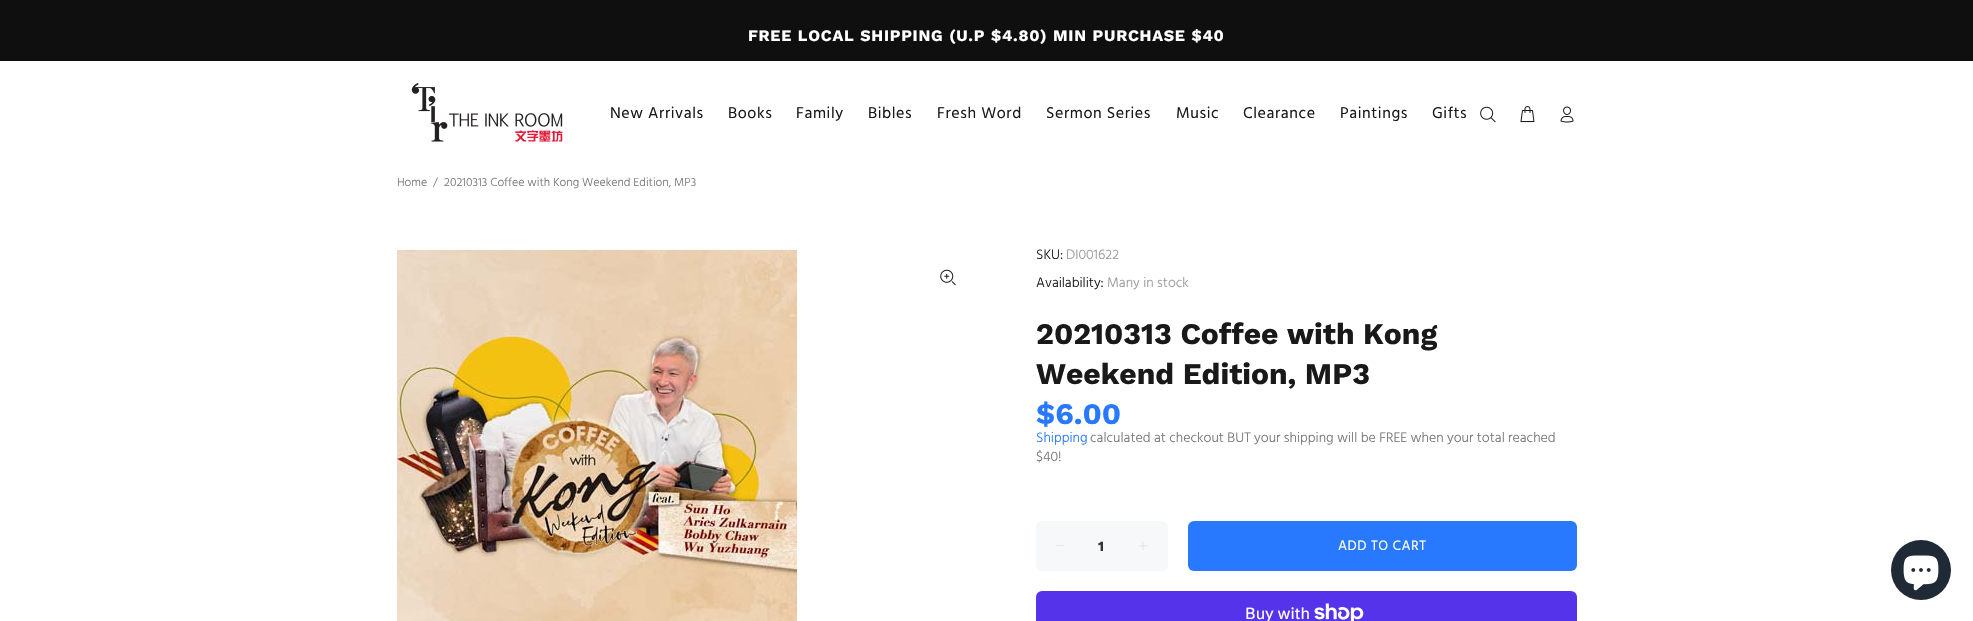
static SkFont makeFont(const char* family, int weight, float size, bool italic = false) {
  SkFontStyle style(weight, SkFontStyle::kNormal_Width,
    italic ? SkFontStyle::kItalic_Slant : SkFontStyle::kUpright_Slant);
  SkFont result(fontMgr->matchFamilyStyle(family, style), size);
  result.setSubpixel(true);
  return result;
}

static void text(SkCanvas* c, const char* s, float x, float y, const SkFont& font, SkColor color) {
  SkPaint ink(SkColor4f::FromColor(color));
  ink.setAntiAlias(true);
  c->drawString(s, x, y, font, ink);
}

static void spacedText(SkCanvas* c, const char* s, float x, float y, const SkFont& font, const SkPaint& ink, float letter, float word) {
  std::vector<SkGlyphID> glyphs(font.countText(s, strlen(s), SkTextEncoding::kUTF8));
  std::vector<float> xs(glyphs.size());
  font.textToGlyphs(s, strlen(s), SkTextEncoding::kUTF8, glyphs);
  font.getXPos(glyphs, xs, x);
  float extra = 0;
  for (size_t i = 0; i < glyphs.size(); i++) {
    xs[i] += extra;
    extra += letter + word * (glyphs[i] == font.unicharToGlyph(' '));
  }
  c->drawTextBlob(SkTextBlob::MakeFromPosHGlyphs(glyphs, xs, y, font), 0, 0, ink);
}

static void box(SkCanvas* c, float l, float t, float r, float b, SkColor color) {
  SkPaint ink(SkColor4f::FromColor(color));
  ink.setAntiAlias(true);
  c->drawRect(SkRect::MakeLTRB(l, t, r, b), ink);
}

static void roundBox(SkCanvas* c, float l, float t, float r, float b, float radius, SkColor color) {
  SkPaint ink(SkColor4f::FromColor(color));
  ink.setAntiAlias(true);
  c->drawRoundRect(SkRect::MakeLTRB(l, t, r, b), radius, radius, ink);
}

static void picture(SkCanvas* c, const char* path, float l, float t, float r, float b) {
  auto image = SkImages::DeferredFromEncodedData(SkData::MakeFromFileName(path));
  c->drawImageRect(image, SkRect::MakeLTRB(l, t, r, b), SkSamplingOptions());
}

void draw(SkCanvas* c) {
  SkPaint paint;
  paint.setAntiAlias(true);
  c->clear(0xffffffff);
  box(c, 0, 0, 1973, 61, 0xff0f0f0f);
  SkFont face1 = makeFont("Work Sans", 700, 16);
  paint.setColor(0xffffffff);
  spacedText(c, "FREE LOCAL SHIPPING (U.P $4.80)", 748, 41, face1, paint, 0.75f, 0.5f);
  spacedText(c, "MIN PURCHASE $40", 1053, 41, face1, paint, 0.75f, 0.5f);
  picture(c, "img_01.png", 411, 83, 563, 142);
  SkFont face2 = makeFont("Hind", 400, 16);
  paint.setColor(0xff191919);
  spacedText(c, "New Arrivals", 610, 118, face2, paint, 0.6f, 0);
  spacedText(c, "Books", 728, 118, face2, paint, 0.6f, 0);
  spacedText(c, "Family", 796, 118, face2, paint, 0.6f, 0);
  spacedText(c, "Bibles", 868, 118, face2, paint, 0.6f, 0);
  spacedText(c, "Fresh Word", 937, 118, face2, paint, 0.6f, 0);
  spacedText(c, "Sermon Series", 1046, 118, face2, paint, 0.6f, 0);
  spacedText(c, "Music", 1176, 118, face2, paint, 0.6f, 0);
  spacedText(c, "Clearance", 1243, 118, face2, paint, 0.6f, 0);
  spacedText(c, "Paintings", 1340, 118, face2, paint, 0.6f, 0);
  spacedText(c, "Gifts", 1432, 118, face2, paint, 0.6f, 0);
  picture(c, "img_02.png", 1480, 106, 1496, 123);
  picture(c, "img_03.png", 1520, 106, 1535, 123);
  picture(c, "img_04.png", 1560, 106, 1574, 123);
  SkFont face3 = makeFont("Hind", 300, 12);
  text(c, "Home", 397, 186, face3, 0xff777777);
  text(c, "/", 433, 186, face3, 0xff777777);
  text(c, "20210313 Coffee with Kong Weekend Edition, MP3", 444, 186, face3, 0xff777777);
  picture(c, "img_05.png", 397, 250, 797, 621);
  picture(c, "img_06.png", 940, 269, 956, 286);
  SkFont face4 = makeFont("Hind", 300, 14);
  text(c, "SKU:", 1036, 259, face4, 0xff191919);
  text(c, "DI001622", 1066, 259, face4, 0xff999999);
  text(c, "Availability:", 1036, 287, face4, 0xff191919);
  text(c, "Many in stock", 1107, 287, face4, 0xff999999);
  SkFont face5 = makeFont("Work Sans", 700, 30);
  text(c, "20210313 Coffee with Kong", 1036, 344, face5, 0xff191919);
  text(c, "Weekend Edition, MP3", 1036, 384, face5, 0xff191919);
  text(c, "$6.00", 1036, 424, face5, 0xff2879fe);
  text(c, "Shipping", 1036, 442, face4, 0xff2879fe);
  text(c, "calculated at checkout BUT your shipping will be FREE when your total reached", 1090, 442, face4, 0xff777777);
  text(c, "$40!", 1036, 461, face4, 0xff777777);
  roundBox(c, 1036, 521, 1168, 571, 6, 0xfff7f8fa);
  paint.setColor(0xffd8d8d8);
  c->drawPath(SkPathBuilder().moveTo(1064.5f, 545.5f).lineTo(1064.5f, 546).lineTo(1055.5f, 546).lineTo(1056, 545.5f).close().detach(), paint);
  SkFont face6 = makeFont("Work Sans", 700, 14);
  text(c, "1", 1098, 551, face6, 0xff333333);
  picture(c, "img_07.png", 1138, 541, 1148, 550);
  roundBox(c, 1188, 521, 1577, 571, 6, 0xff2879fe);
  SkFont face7 = makeFont("Hind", 400, 14);
  paint.setColor(0xffffffff);
  spacedText(c, "ADD TO CART", 1338, 550, face7, paint, 0.5f, 0);
  roundBox(c, 1036, 591, 1577, 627, 6, 0xff5433eb);
  SkFont face8 = makeFont("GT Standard", 400, 16);
  text(c, "Buy with", 1245, 619, face8, 0xffffffff);
  picture(c, "img_08.png", 1314, 603, 1364, 621);
  paint.setColor(0xff202a36);
  c->drawCircle(1921, 570, 30, paint);
  picture(c, "img_09.png", 1903, 555, 1939, 591);
}
